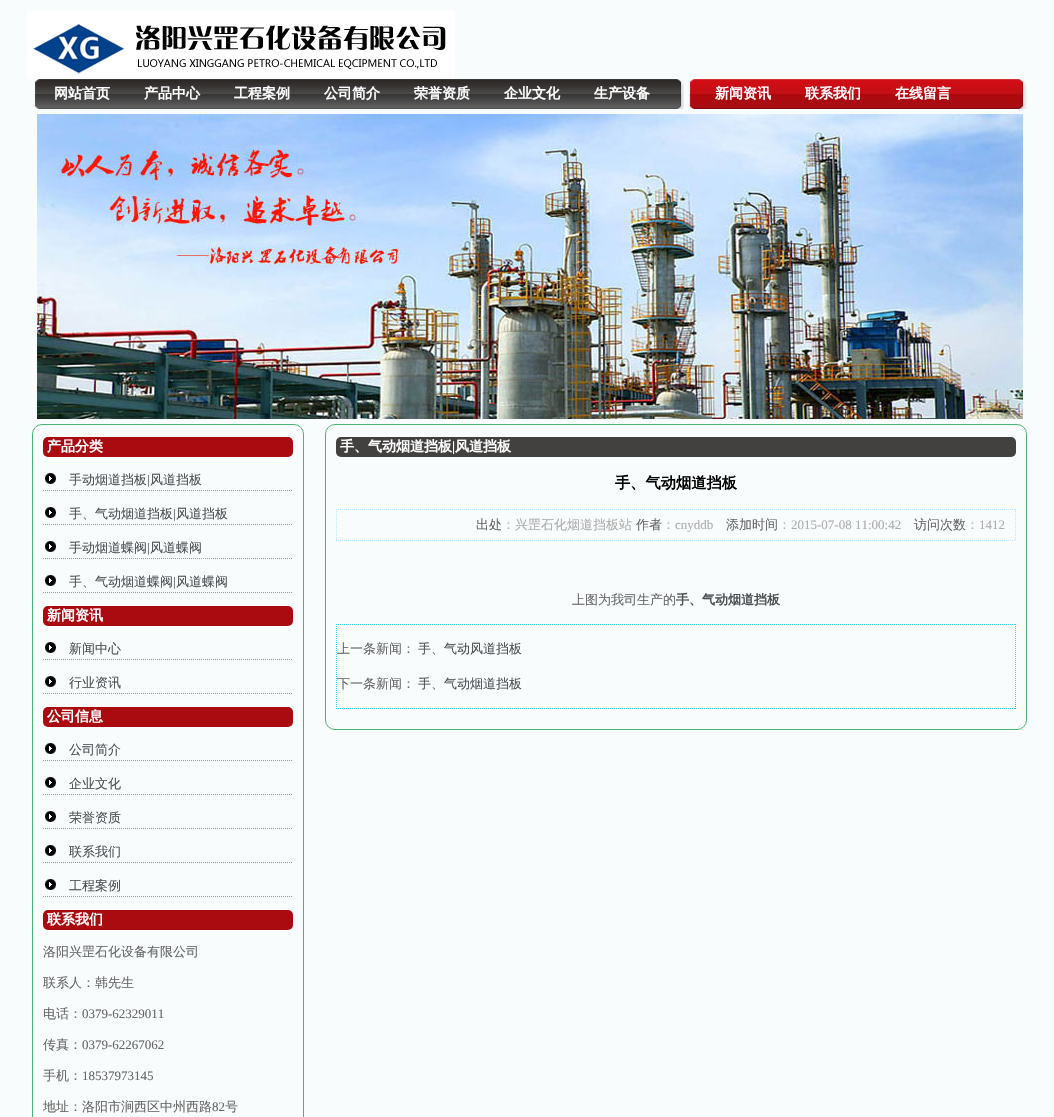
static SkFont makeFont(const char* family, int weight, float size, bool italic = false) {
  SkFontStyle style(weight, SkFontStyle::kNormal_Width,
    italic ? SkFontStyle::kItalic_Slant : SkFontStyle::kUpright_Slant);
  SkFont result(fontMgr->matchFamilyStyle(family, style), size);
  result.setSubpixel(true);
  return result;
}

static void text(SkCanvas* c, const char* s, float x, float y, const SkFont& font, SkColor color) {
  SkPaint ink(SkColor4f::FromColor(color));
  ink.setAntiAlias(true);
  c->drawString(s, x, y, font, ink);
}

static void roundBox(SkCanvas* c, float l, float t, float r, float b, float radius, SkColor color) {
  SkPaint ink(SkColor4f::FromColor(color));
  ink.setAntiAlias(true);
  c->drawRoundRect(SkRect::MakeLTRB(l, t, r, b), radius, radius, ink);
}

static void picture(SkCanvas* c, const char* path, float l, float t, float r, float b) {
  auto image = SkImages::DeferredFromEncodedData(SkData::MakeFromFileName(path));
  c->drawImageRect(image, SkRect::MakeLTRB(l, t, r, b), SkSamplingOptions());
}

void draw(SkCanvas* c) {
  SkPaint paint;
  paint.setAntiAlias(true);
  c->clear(0xfff9fcfd);
  picture(c, "img_01.png", 27, 11, 455, 79);
  picture(c, "img_02.png", 34, 79, 684, 109);
  SkFont face1 = makeFont("WenQuanYi Zen Hei", 700, 14);
  text(c, "网站首页", 54, 98, face1, 0xffffffff);
  text(c, "产品中心", 144, 98, face1, 0xffffffff);
  text(c, "工程案例", 234, 98, face1, 0xffffffff);
  text(c, "公司简介", 324, 98, face1, 0xffffffff);
  text(c, "荣誉资质", 414, 98, face1, 0xffffffff);
  text(c, "企业文化", 504, 98, face1, 0xffffffff);
  text(c, "生产设备", 594, 98, face1, 0xffffffff);
  picture(c, "img_03.png", 689, 79, 1027, 109);
  text(c, "新闻资讯", 715, 98, face1, 0xffffffff);
  text(c, "联系我们", 805, 98, face1, 0xffffffff);
  text(c, "在线留言", 895, 98, face1, 0xffffffff);
  picture(c, "img_04.png", 37, 114, 1023, 419);
  paint.setStyle(SkPaint::kStroke_Style);
  paint.setStrokeWidth(1);
  paint.setColor(0xff4db376);
  c->drawRoundRect(SkRect::MakeLTRB(32.5f, 424.5f, 303.5f, 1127.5f), 9.5f, 9.5f, paint);
  roundBox(c, 43, 437, 293, 457, 5, 0xffaa0b10);
  text(c, "产品分类", 47, 451, face1, 0xffffffff);
  picture(c, "img_05.png", 45, 473, 56, 484);
  paint.setColor(0xff999999);
  paint.setPathEffect(SkDashPathEffect::Make({{1, 1}}, 0));
  c->drawPath(SkPathBuilder().moveTo(43, 490.5f).lineTo(293, 490.5f).detach(), paint);
  paint.setPathEffect(nullptr);
  SkFont face2 = makeFont("WenQuanYi Zen Hei", 500, 13);
  text(c, "手动烟道挡板", 69, 484, face2, 0xff4c5053);
  SkFont face3 = makeFont("Liberation Serif", 400, 13);
  text(c, "|", 147, 484, face3, 0xff4c5053);
  text(c, "风道挡板", 150, 484, face2, 0xff4c5053);
  picture(c, "img_05.png", 45, 507, 56, 518);
  paint.setPathEffect(SkDashPathEffect::Make({{1, 1}}, 0));
  c->drawPath(SkPathBuilder().moveTo(43, 524.5f).lineTo(293, 524.5f).detach(), paint);
  paint.setPathEffect(nullptr);
  text(c, "手、气动烟道挡板", 69, 518, face2, 0xff4c5053);
  text(c, "|", 173, 518, face3, 0xff4c5053);
  text(c, "风道挡板", 176, 518, face2, 0xff4c5053);
  picture(c, "img_05.png", 45, 541, 56, 552);
  paint.setPathEffect(SkDashPathEffect::Make({{1, 1}}, 0));
  c->drawPath(SkPathBuilder().moveTo(43, 558.5f).lineTo(293, 558.5f).detach(), paint);
  paint.setPathEffect(nullptr);
  text(c, "手动烟道蝶阀", 69, 552, face2, 0xff4c5053);
  text(c, "|", 147, 552, face3, 0xff4c5053);
  text(c, "风道蝶阀", 150, 552, face2, 0xff4c5053);
  picture(c, "img_05.png", 45, 575, 56, 586);
  paint.setPathEffect(SkDashPathEffect::Make({{1, 1}}, 0));
  c->drawPath(SkPathBuilder().moveTo(43, 592.5f).lineTo(293, 592.5f).detach(), paint);
  paint.setPathEffect(nullptr);
  text(c, "手、气动烟道蝶阀", 69, 586, face2, 0xff4c5053);
  text(c, "|", 173, 586, face3, 0xff4c5053);
  text(c, "风道蝶阀", 176, 586, face2, 0xff4c5053);
  roundBox(c, 43, 606, 293, 626, 5, 0xffaa0b10);
  text(c, "新闻资讯", 47, 620, face1, 0xffffffff);
  picture(c, "img_05.png", 45, 642, 56, 653);
  paint.setPathEffect(SkDashPathEffect::Make({{1, 1}}, 0));
  c->drawPath(SkPathBuilder().moveTo(43, 659.5f).lineTo(293, 659.5f).detach(), paint);
  paint.setPathEffect(nullptr);
  text(c, "新闻中心", 69, 653, face2, 0xff4c5053);
  picture(c, "img_05.png", 45, 676, 56, 687);
  paint.setPathEffect(SkDashPathEffect::Make({{1, 1}}, 0));
  c->drawPath(SkPathBuilder().moveTo(43, 693.5f).lineTo(293, 693.5f).detach(), paint);
  paint.setPathEffect(nullptr);
  text(c, "行业资讯", 69, 687, face2, 0xff4c5053);
  roundBox(c, 43, 707, 293, 727, 5, 0xffaa0b10);
  text(c, "公司信息", 47, 721, face1, 0xffffffff);
  picture(c, "img_05.png", 45, 743, 56, 754);
  paint.setPathEffect(SkDashPathEffect::Make({{1, 1}}, 0));
  c->drawPath(SkPathBuilder().moveTo(43, 760.5f).lineTo(293, 760.5f).detach(), paint);
  paint.setPathEffect(nullptr);
  text(c, "公司简介", 69, 754, face2, 0xff4c5053);
  picture(c, "img_05.png", 45, 777, 56, 788);
  paint.setPathEffect(SkDashPathEffect::Make({{1, 1}}, 0));
  c->drawPath(SkPathBuilder().moveTo(43, 794.5f).lineTo(293, 794.5f).detach(), paint);
  paint.setPathEffect(nullptr);
  text(c, "企业文化", 69, 788, face2, 0xff4c5053);
  picture(c, "img_05.png", 45, 811, 56, 822);
  paint.setPathEffect(SkDashPathEffect::Make({{1, 1}}, 0));
  c->drawPath(SkPathBuilder().moveTo(43, 828.5f).lineTo(293, 828.5f).detach(), paint);
  paint.setPathEffect(nullptr);
  text(c, "荣誉资质", 69, 822, face2, 0xff4c5053);
  picture(c, "img_05.png", 45, 845, 56, 856);
  paint.setPathEffect(SkDashPathEffect::Make({{1, 1}}, 0));
  c->drawPath(SkPathBuilder().moveTo(43, 862.5f).lineTo(293, 862.5f).detach(), paint);
  paint.setPathEffect(nullptr);
  text(c, "联系我们", 69, 856, face2, 0xff4c5053);
  picture(c, "img_05.png", 45, 879, 56, 890);
  paint.setPathEffect(SkDashPathEffect::Make({{1, 1}}, 0));
  c->drawPath(SkPathBuilder().moveTo(43, 896.5f).lineTo(293, 896.5f).detach(), paint);
  paint.setPathEffect(nullptr);
  text(c, "工程案例", 69, 890, face2, 0xff4c5053);
  roundBox(c, 43, 910, 293, 930, 5, 0xffaa0b10);
  text(c, "联系我们", 47, 924, face1, 0xffffffff);
  text(c, "洛阳兴罡石化设备有限公司", 43, 956, face2, 0xff666666);
  text(c, "联系人：韩先生", 43, 987, face2, 0xff666666);
  text(c, "电话：", 43, 1018, face2, 0xff666666);
  text(c, "0379-62329011", 82, 1018, face3, 0xff666666);
  text(c, "传真：", 43, 1049, face2, 0xff666666);
  text(c, "0379-62267062", 82, 1049, face3, 0xff666666);
  text(c, "手机：", 43, 1080, face2, 0xff666666);
  text(c, "18537973145", 82, 1080, face3, 0xff666666);
  text(c, "地址：洛阳市涧西区中州西路", 43, 1111, face2, 0xff666666);
  text(c, "82", 212, 1111, face3, 0xff666666);
  text(c, "号", 225, 1111, face2, 0xff666666);
  paint.setColor(0xff4db376);
  c->drawRoundRect(SkRect::MakeLTRB(325.5f, 424.5f, 1026.5f, 729.5f), 9.5f, 9.5f, paint);
  roundBox(c, 336, 437, 1016, 457, 5, 0xff434140);
  text(c, "手、气动烟道挡板", 340, 451, face1, 0xffffffff);
  SkFont face4 = makeFont("Liberation Serif", 700, 14);
  text(c, "|", 452, 451, face4, 0xffffffff);
  text(c, "风道挡板", 455, 451, face1, 0xffffffff);
  SkFont face5 = makeFont("WenQuanYi Zen Hei", 700, 15.25f);
  text(c, "手、气动烟道挡板", 615, 488, face5, 0xff000000);
  paint.setColor(0xffb9e5fe);
  paint.setPathEffect(SkDashPathEffect::Make({{1, 1}}, 0));
  c->drawPath(SkPathBuilder().moveTo(336, 509.5f).lineTo(1016, 509.5f).detach(), paint);
  paint.setPathEffect(nullptr);
  paint.setPathEffect(SkDashPathEffect::Make({{1, 1}}, 0));
  c->drawPath(SkPathBuilder().moveTo(1015.5f, 509).lineTo(1015.5f, 541).detach(), paint);
  paint.setPathEffect(nullptr);
  paint.setPathEffect(SkDashPathEffect::Make({{1, 1}}, 0));
  c->drawPath(SkPathBuilder().moveTo(336, 540.5f).lineTo(1016, 540.5f).detach(), paint);
  paint.setPathEffect(nullptr);
  paint.setPathEffect(SkDashPathEffect::Make({{1, 1}}, 0));
  c->drawPath(SkPathBuilder().moveTo(336.5f, 509).lineTo(336.5f, 541).detach(), paint);
  paint.setPathEffect(nullptr);
  text(c, "出处", 476, 529, face2, 0xff666666);
  text(c, "：兴罡石化烟道挡板站", 502, 529, face2, 0xffacacac);
  text(c, "作者", 636, 529, face2, 0xff666666);
  text(c, "：", 662, 529, face2, 0xffacacac);
  text(c, "cnyddb", 675, 529, face3, 0xffacacac);
  text(c, "添加时间", 726, 529, face2, 0xff666666);
  text(c, "：", 778, 529, face2, 0xffacacac);
  text(c, "2015-07-08 11:00:42", 791, 529, face3, 0xffacacac);
  text(c, "访问次数", 914, 529, face2, 0xff666666);
  text(c, "：", 966, 529, face2, 0xffacacac);
  text(c, "1412", 979, 529, face3, 0xffacacac);
  text(c, "上图为我司生产的", 572, 604, face2, 0xff666666);
  SkFont face6 = makeFont("WenQuanYi Zen Hei", 700, 13);
  text(c, "手、气动烟道挡板", 676, 604, face6, 0xff4c5053);
  paint.setColor(0xff33ccff);
  paint.setPathEffect(SkDashPathEffect::Make({{1, 1}}, 0));
  c->drawPath(SkPathBuilder().moveTo(336, 624.5f).lineTo(1016, 624.5f).detach(), paint);
  paint.setPathEffect(nullptr);
  paint.setPathEffect(SkDashPathEffect::Make({{1, 1}}, 0));
  c->drawPath(SkPathBuilder().moveTo(1015.5f, 624).lineTo(1015.5f, 709).detach(), paint);
  paint.setPathEffect(nullptr);
  paint.setPathEffect(SkDashPathEffect::Make({{1, 1}}, 0));
  c->drawPath(SkPathBuilder().moveTo(336, 708.5f).lineTo(1016, 708.5f).detach(), paint);
  paint.setPathEffect(nullptr);
  paint.setPathEffect(SkDashPathEffect::Make({{1, 1}}, 0));
  c->drawPath(SkPathBuilder().moveTo(336.5f, 624).lineTo(336.5f, 709).detach(), paint);
  paint.setPathEffect(nullptr);
  text(c, "上一条新闻：", 337, 653, face2, 0xff666666);
  text(c, "手、气动风道挡板", 418, 653, face2, 0xff4c5053);
  text(c, "下一条新闻：", 337, 688, face2, 0xff666666);
  text(c, "手、气动烟道挡板", 418, 688, face2, 0xff4c5053);
}
